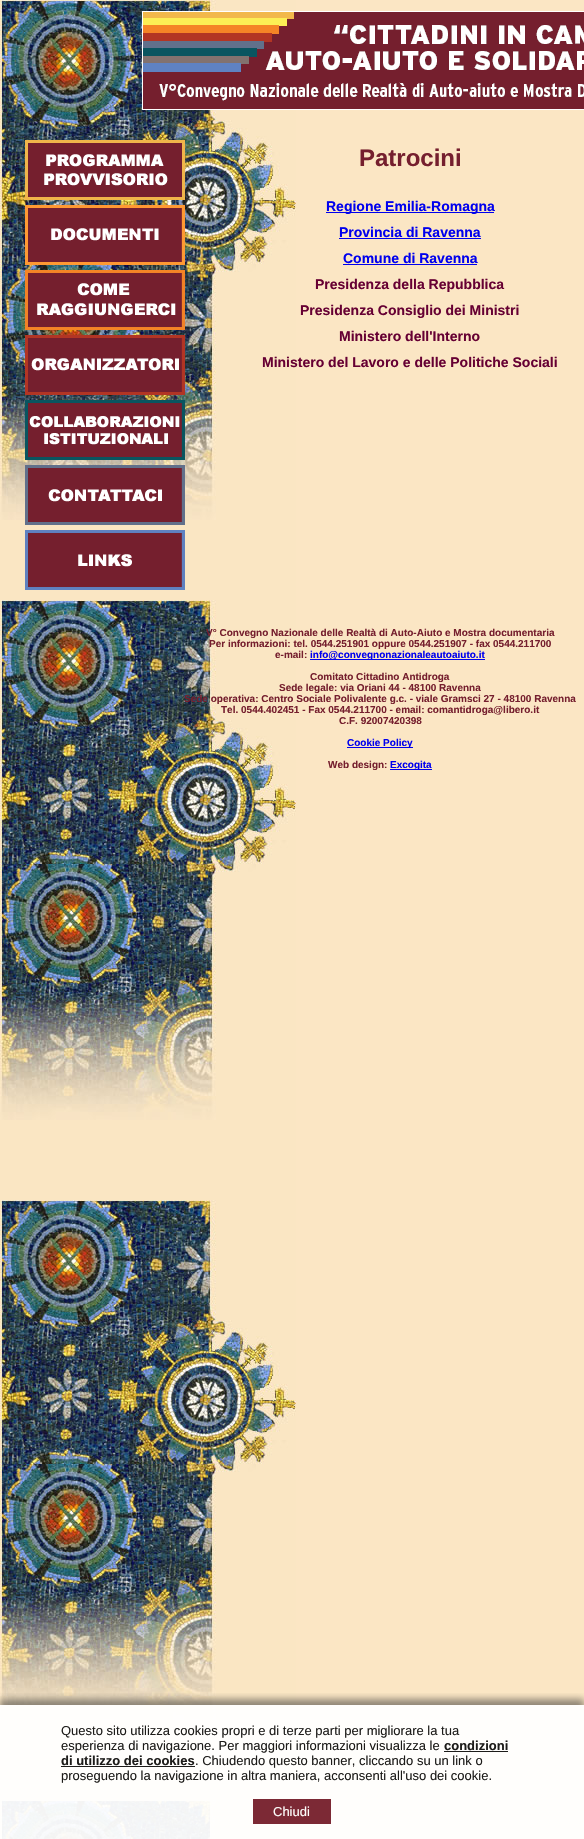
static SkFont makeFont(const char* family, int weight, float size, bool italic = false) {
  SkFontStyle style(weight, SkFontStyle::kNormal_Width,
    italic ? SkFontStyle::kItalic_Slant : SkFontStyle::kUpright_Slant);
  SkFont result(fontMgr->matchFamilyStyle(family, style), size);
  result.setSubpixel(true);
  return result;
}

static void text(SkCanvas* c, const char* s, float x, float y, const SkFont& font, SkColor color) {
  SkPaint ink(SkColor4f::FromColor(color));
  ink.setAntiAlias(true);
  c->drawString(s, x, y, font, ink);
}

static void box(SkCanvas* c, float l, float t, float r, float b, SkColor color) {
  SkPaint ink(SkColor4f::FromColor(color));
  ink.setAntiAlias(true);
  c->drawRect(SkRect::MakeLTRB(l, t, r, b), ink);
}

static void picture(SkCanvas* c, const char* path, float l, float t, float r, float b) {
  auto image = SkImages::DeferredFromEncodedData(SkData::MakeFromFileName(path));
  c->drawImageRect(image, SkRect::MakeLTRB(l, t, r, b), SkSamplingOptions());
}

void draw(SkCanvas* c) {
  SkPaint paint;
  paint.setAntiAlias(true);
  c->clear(0xfffbe6c4);
  picture(c, "img_01.png", 0, 0, 296, 1839);
  picture(c, "img_02.png", 142, 11, 584, 110);
  picture(c, "img_03.png", 25, 140, 185, 200);
  picture(c, "img_04.png", 25, 205, 185, 265);
  picture(c, "img_05.png", 25, 270, 185, 330);
  picture(c, "img_06.png", 25, 335, 185, 395);
  picture(c, "img_07.png", 25, 400, 185, 460);
  picture(c, "img_08.png", 25, 465, 185, 525);
  picture(c, "img_09.png", 25, 530, 185, 590);
  SkFont face1 = makeFont("Liberation Sans", 700, 24);
  text(c, "Patrocini", 359, 166, face1, 0xff751f2e);
  box(c, 326, 212, 494, 213, 0xff0000ee);
  SkFont face2 = makeFont("Liberation Sans", 700, 14);
  text(c, "Regione Emilia-Romagna", 326, 211, face2, 0xff0000ee);
  text(c, "Provincia di Ravenna", 339, 237, face2, 0xff0000ee);
  box(c, 339, 238, 481, 239, 0xff0000ee);
  text(c, "Comune di Ravenna", 343, 263, face2, 0xff0000ee);
  box(c, 343, 264, 477, 265, 0xff0000ee);
  text(c, "Presidenza della Repubblica", 315, 289, face2, 0xff660033);
  text(c, "Presidenza Consiglio dei Ministri", 300, 315, face2, 0xff660033);
  text(c, "Ministero dell'Interno", 339, 341, face2, 0xff660033);
  text(c, "Ministero del Lavoro e delle Politiche Sociali", 262, 367, face2, 0xff660033);
  SkFont face3 = makeFont("Liberation Sans", 700, 10);
  text(c, "V° Convegno Nazionale delle Realtà di Auto-Aiuto e Mostra documentaria", 206, 636, face3, 0xff751f2e);
  text(c, "Per informazioni: tel. 0544.251901 oppure 0544.251907 - fax 0544.211700", 209, 647, face3, 0xff751f2e);
  text(c, "e-mail:", 275, 658, face3, 0xff751f2e);
  box(c, 310, 659, 485, 660, 0xff0000ee);
  text(c, "info@convegnonazionaleautoaiuto.it", 310, 658, face3, 0xff0000ee);
  text(c, "Comitato Cittadino Antidroga", 310, 680, face3, 0xff751f2e);
  text(c, "Sede legale: via Oriani 44 - 48100 Ravenna", 279, 691, face3, 0xff751f2e);
  text(c, "Sede operativa: Centro Sociale Polivalente g.c. - viale Gramsci 27 - 48100 Ravenna", 184, 702, face3, 0xff751f2e);
  text(c, "Tel. 0544.402451 - Fax 0544.211700 - email: comantidroga@libero.it", 221, 713, face3, 0xff751f2e);
  text(c, "C.F. 92007420398", 339, 724, face3, 0xff751f2e);
  box(c, 347, 747, 413, 748, 0xff0000ee);
  text(c, "Cookie Policy", 347, 746, face3, 0xff0000ee);
  text(c, "Web design:", 328, 768, face3, 0xff751f2e);
  box(c, 390, 769, 432, 770, 0xff0000ee);
  text(c, "Excogita", 390, 768, face3, 0xff0000ee);
  c->save();
  c->clipRect(SkRect::MakeLTRB(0, 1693, 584, 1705));
  paint.setColor(0x87323232);
  paint.setMaskFilter(SkMaskFilter::MakeBlur(kNormal_SkBlurStyle, 3.5f));
  c->drawRect(SkRect::MakeLTRB(0, 1699, 584, 1837), paint);
  paint.setMaskFilter(nullptr);
  c->restore();
  box(c, 0, 1705, 584, 1839, 0xf2ffffff);
  SkFont face4 = makeFont("Liberation Sans", 400, 13);
  text(c, "Questo sito utilizza cookies propri e di terze parti per migliorare la tua", 61, 1735, face4, 0xff1d1c1a);
  text(c, "esperienza di navigazione. Per maggiori informazioni visualizza le", 61, 1750, face4, 0xff1d1c1a);
  SkFont face5 = makeFont("Liberation Sans", 700, 13);
  text(c, "condizioni", 444, 1750, face5, 0xff1d1c1a);
  box(c, 444, 1751, 508, 1752, 0xff1d1c1a);
  text(c, "di utilizzo dei cookies", 61, 1765, face5, 0xff1d1c1a);
  box(c, 61, 1766, 195, 1767, 0xff1d1c1a);
  text(c, ". Chiudendo questo banner, cliccando su un link o", 195, 1765, face4, 0xff1d1c1a);
  text(c, "proseguendo la navigazione in altra maniera, acconsenti all'uso dei cookie.", 61, 1780, face4, 0xff1d1c1a);
  box(c, 253, 1799, 331, 1824, 0xff7c2935);
  text(c, "Chiudi", 273, 1816, face4, 0xfffffefc);
}
